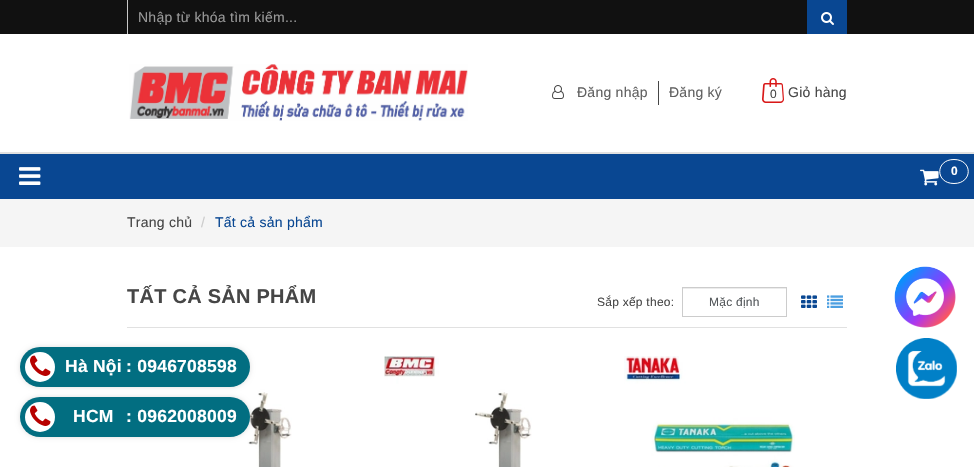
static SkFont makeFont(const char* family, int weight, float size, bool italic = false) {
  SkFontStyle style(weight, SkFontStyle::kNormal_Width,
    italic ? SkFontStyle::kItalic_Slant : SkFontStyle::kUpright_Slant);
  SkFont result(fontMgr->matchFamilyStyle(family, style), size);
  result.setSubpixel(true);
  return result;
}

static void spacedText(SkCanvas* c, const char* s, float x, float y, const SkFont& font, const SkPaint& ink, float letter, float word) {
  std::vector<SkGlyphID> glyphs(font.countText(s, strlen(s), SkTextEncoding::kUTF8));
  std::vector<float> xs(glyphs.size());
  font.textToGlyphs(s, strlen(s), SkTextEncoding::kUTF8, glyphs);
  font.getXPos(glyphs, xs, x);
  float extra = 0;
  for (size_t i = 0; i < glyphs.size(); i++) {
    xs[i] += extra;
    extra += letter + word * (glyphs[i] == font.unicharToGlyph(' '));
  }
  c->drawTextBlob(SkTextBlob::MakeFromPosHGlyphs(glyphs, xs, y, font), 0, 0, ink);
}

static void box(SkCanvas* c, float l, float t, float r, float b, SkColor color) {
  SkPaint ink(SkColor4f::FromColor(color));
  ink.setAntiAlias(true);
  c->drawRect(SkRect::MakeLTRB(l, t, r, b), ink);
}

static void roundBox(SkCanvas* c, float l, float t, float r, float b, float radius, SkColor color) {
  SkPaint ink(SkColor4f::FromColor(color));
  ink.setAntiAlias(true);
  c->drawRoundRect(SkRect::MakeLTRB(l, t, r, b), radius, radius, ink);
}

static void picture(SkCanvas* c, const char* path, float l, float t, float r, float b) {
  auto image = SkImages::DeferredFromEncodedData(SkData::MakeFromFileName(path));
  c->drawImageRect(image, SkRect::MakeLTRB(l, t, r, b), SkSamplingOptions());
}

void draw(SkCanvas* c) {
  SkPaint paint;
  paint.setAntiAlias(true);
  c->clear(0xffffffff);
  box(c, 0, 0, 974, 34, 0xff111111);
  box(c, 127, 0, 128, 34, 0xffc8c8c8);
  SkFont face1 = makeFont("Liberation Sans", 400, 14);
  paint.setColor(0xff999999);
  spacedText(c, "Nhập từ khóa tìm kiếm...", 138, 22, face1, paint, 0.25f, 0);
  box(c, 807, 0, 847, 34, 0xff094792);
  picture(c, "img_01.png", 821, 12, 834, 25);
  box(c, 0, 152, 974, 154, 0xffe1e1e1);
  picture(c, "img_02.png", 129, 64, 468, 121);
  picture(c, "img_03.png", 552, 85, 564, 99);
  paint.setColor(0xff606060);
  spacedText(c, "Đăng nhập", 577, 97, face1, paint, 0.25f, 0);
  box(c, 658, 81, 659, 105, 0xff464646);
  spacedText(c, "Đăng ký", 669, 97, face1, paint, 0.25f, 0);
  picture(c, "img_04.png", 762, 78, 784, 103);
  paint.setColor(0xff464646);
  spacedText(c, "Giỏ hàng", 788, 97, face1, paint, 0.25f, 0);
  SkFont face2 = makeFont("Liberation Sans", 400, 12);
  spacedText(c, "0", 770, 98, face2, paint, 0.25f, 0);
  box(c, 0, 154, 974, 199, 0xff094792);
  picture(c, "img_05.png", 19, 167, 41, 185);
  picture(c, "img_06.png", 920, 169, 939, 186);
  paint.setStyle(SkPaint::kStroke_Style);
  paint.setStrokeWidth(1);
  paint.setColor(0xffffffff);
  c->drawPath(SkPathBuilder().moveTo(954, 159.5f).cubicTo(973, 159.5f, 973, 183.5f, 954, 183.5f).cubicTo(935, 183.5f, 935, 159.5f, 954, 159.5f).close().detach(), paint);
  SkFont face3 = makeFont("Liberation Sans", 700, 12);
  paint.setStyle(SkPaint::kFill_Style);
  spacedText(c, "0", 951, 175, face3, paint, 0.25f, 0);
  box(c, 0, 199, 974, 247, 0xfff5f5f5);
  paint.setColor(0xff464646);
  spacedText(c, "Trang chủ", 127, 227, face1, paint, 0.25f, 0);
  paint.setColor(0xffcccccc);
  spacedText(c, "/", 201, 227, face1, paint, 0.25f, 0);
  paint.setColor(0xff094792);
  spacedText(c, "Tất cả sản phẩm", 215, 227, face1, paint, 0.25f, 0);
  box(c, 127, 327, 847, 328, 0xffe1e1e1);
  SkFont face4 = makeFont("Liberation Sans", 700, 20);
  paint.setColor(0xff464646);
  spacedText(c, "TẤT CẢ SẢN PHẨM", 127, 303, face4, paint, 0.25f, 0);
  spacedText(c, "Sắp xếp theo:", 597, 306, face2, paint, 0.25f, 0);
  box(c, 683, 288, 786, 289, 0xffececec);
  paint.setStyle(SkPaint::kStroke_Style);
  paint.setColor(0xffcccccc);
  c->drawRect(SkRect::MakeLTRB(682.5f, 287.5f, 786.5f, 316.5f), paint);
  paint.setStyle(SkPaint::kFill_Style);
  paint.setColor(0xff55595c);
  spacedText(c, "Mặc định", 709, 306, face2, paint, 0.25f, 0);
  picture(c, "img_07.png", 801, 295, 817, 308);
  picture(c, "img_08.png", 827, 295, 843, 308);
  picture(c, "img_09.png", 144, 356, 292, 467);
  picture(c, "img_10.png", 384, 356, 532, 467);
  picture(c, "img_11.png", 624, 356, 795, 467);
  picture(c, "img_12.png", 894, 266, 956, 328);
  paint.setColor(0xffdddddd);
  paint.setMaskFilter(SkMaskFilter::MakeBlur(kNormal_SkBlurStyle, 2.5f));
  c->drawRoundRect(SkRect::MakeLTRB(20, 347, 250, 387), 20, 20, paint);
  paint.setMaskFilter(nullptr);
  roundBox(c, 20, 347, 250, 387, 20, 0xff026e81);
  paint.setColor(0xffffffff);
  c->drawCircle(40, 367, 15, paint);
  picture(c, "img_13.png", 30, 355, 51, 376);
  SkFont face5 = makeFont("Liberation Sans", 700, 17.5f);
  spacedText(c, "Hà Nội", 65, 372, face5, paint, 0.25f, 0);
  spacedText(c, ": 0946708598", 126, 372, face5, paint, 0.25f, 0);
  picture(c, "img_14.png", 896, 338, 957, 399);
  paint.setColor(0xffdddddd);
  paint.setMaskFilter(SkMaskFilter::MakeBlur(kNormal_SkBlurStyle, 2.5f));
  c->drawRoundRect(SkRect::MakeLTRB(20, 397, 250, 437), 20, 20, paint);
  paint.setMaskFilter(nullptr);
  roundBox(c, 20, 397, 250, 437, 20, 0xff026e81);
  paint.setColor(0xffffffff);
  c->drawCircle(40, 417, 15, paint);
  picture(c, "img_13.png", 30, 405, 51, 426);
  spacedText(c, "HCM", 73, 422, face5, paint, 0.25f, 0);
  spacedText(c, ": 0962008009", 126, 422, face5, paint, 0.25f, 0);
}
